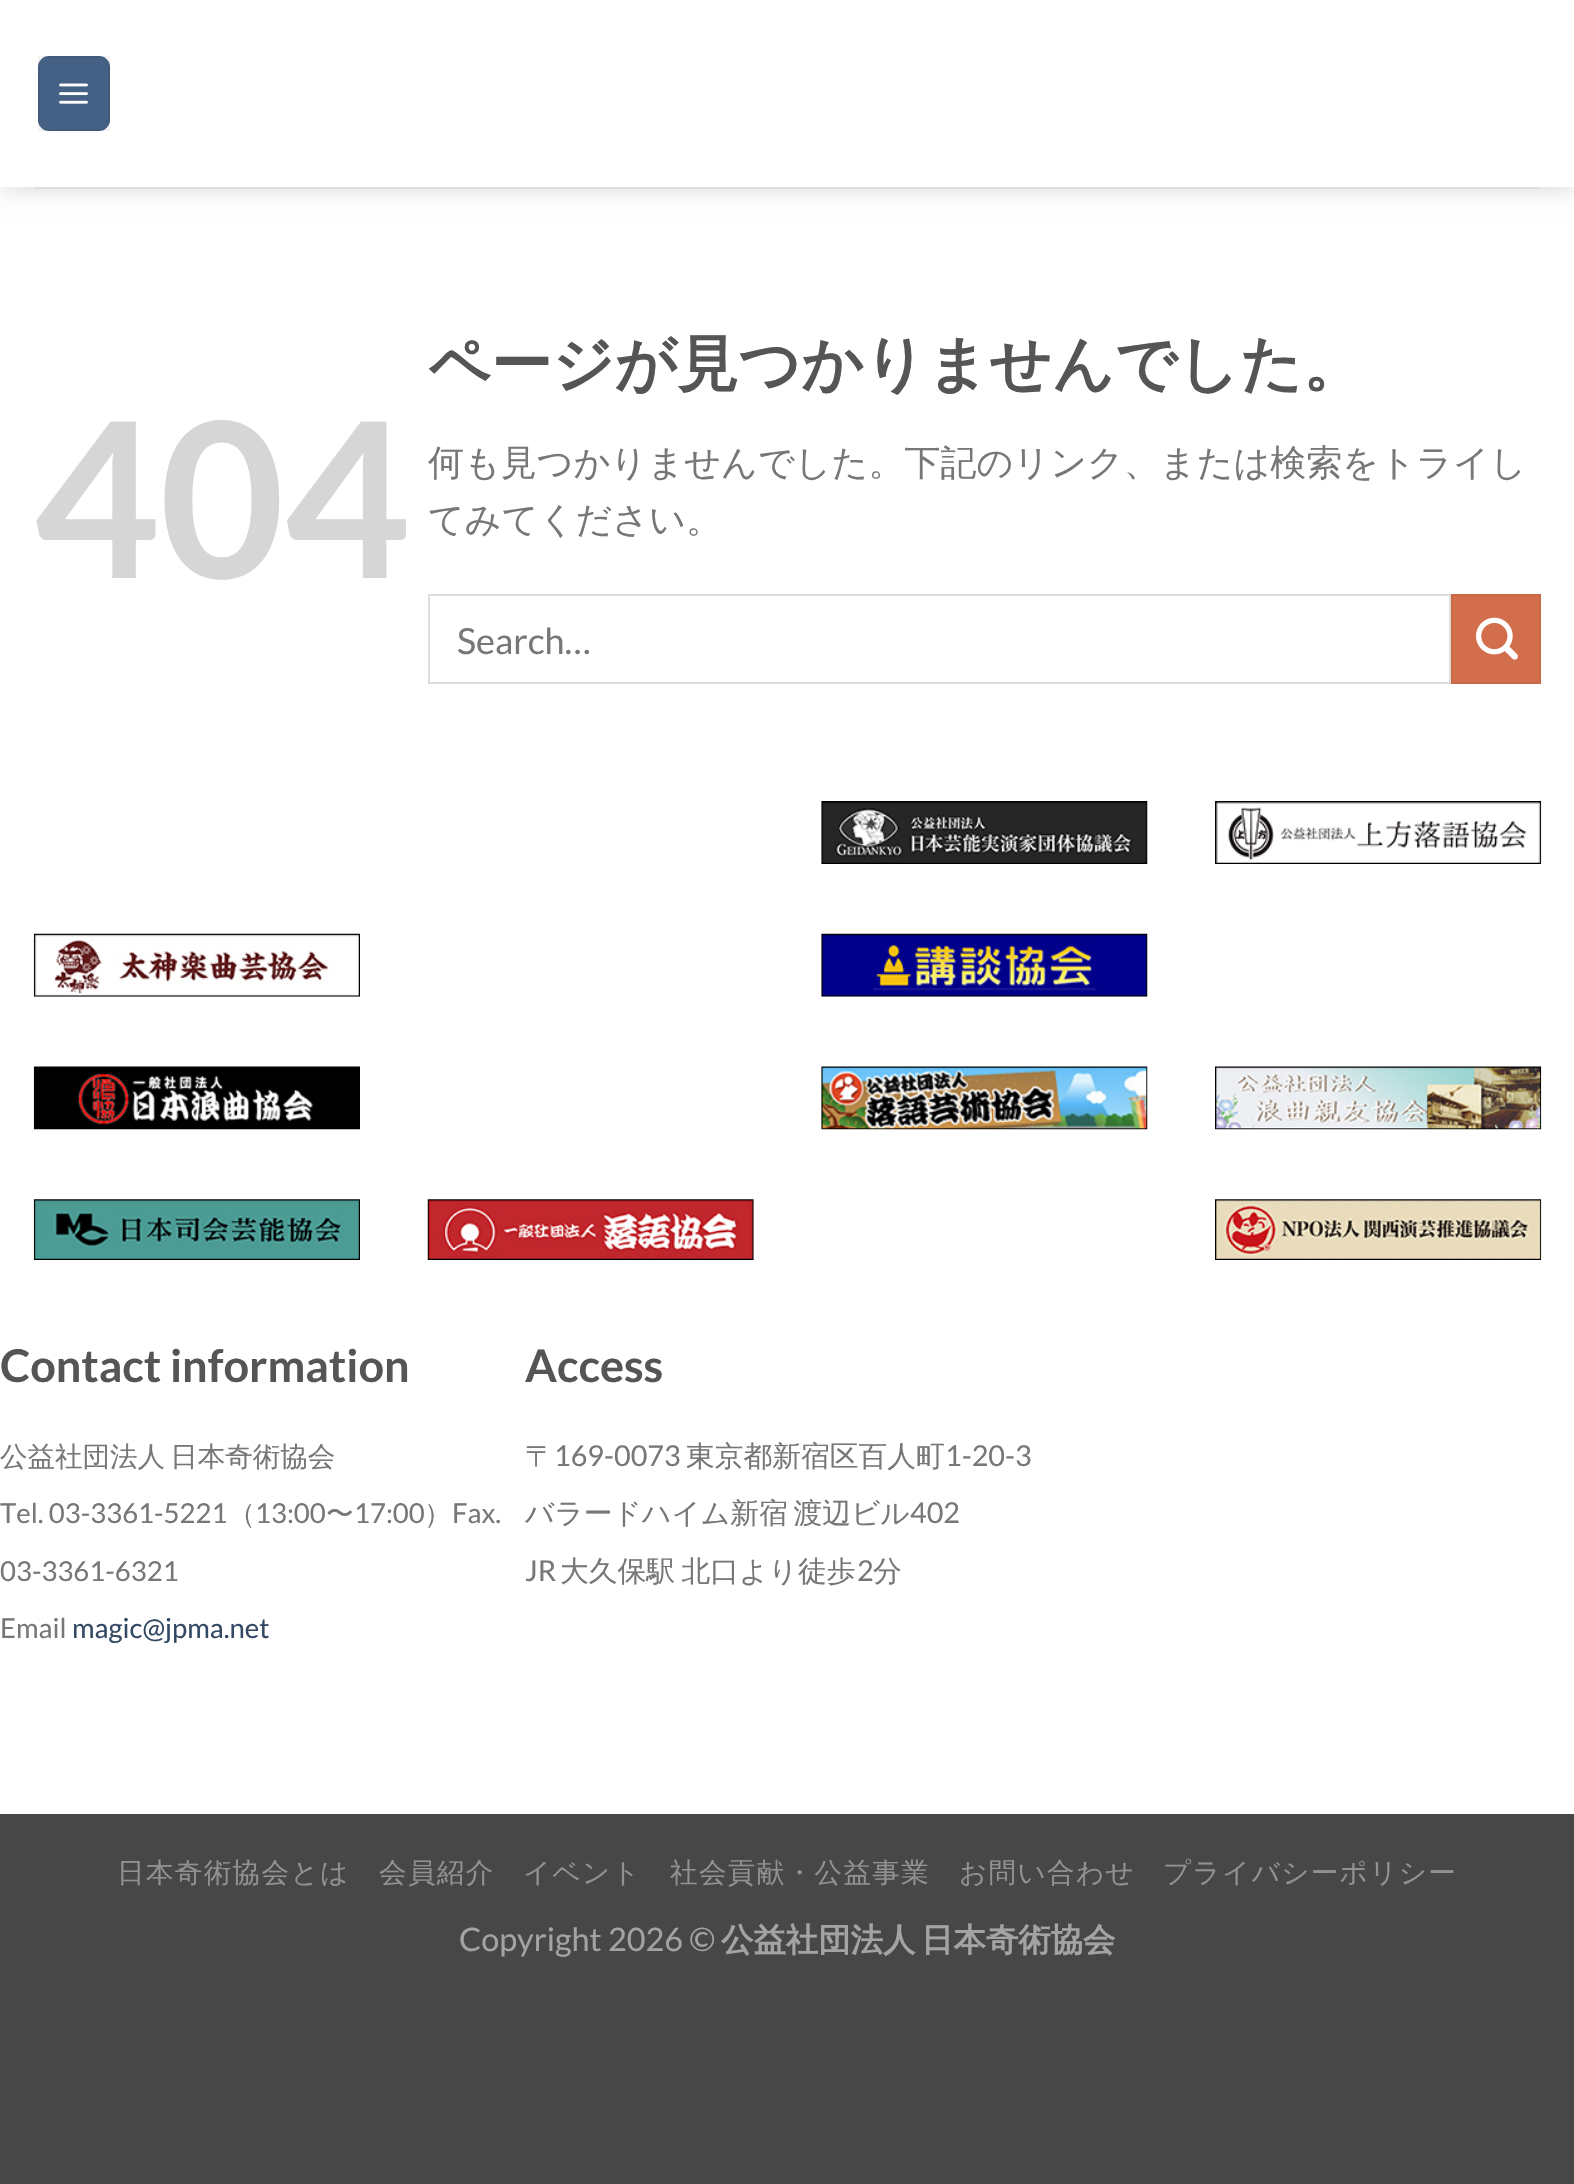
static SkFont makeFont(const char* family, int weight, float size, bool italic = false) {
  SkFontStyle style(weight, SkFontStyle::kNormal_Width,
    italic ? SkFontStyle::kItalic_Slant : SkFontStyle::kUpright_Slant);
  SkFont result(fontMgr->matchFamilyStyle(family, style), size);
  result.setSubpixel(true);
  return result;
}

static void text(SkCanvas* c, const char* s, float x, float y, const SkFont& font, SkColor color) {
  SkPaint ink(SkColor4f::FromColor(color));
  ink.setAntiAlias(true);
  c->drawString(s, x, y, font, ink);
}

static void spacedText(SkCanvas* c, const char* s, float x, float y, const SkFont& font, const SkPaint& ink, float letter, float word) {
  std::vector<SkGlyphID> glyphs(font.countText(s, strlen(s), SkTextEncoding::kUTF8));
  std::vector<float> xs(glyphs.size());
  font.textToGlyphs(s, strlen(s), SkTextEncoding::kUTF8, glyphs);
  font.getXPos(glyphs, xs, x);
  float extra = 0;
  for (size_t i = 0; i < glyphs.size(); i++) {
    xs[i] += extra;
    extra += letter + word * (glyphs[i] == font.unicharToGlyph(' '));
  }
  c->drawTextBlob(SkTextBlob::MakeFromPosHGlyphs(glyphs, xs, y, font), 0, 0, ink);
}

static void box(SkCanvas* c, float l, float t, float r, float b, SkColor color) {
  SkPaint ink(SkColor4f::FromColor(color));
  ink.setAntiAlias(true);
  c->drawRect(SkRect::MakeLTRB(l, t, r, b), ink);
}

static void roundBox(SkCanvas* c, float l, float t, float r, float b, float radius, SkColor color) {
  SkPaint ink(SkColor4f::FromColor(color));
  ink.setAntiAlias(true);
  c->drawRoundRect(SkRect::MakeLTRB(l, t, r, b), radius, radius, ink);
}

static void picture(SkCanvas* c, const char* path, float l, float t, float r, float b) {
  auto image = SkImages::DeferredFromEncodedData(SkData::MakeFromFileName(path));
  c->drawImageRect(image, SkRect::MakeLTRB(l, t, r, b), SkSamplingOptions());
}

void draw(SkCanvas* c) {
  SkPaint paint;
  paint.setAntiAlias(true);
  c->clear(0xff474747);
  box(c, 0, 187, 1574, 1814, 0xffffffff);
  paint.setColor(0x26000000);
  paint.setMaskFilter(SkMaskFilter::MakeBlur(kNormal_SkBlurStyle, 11));
  c->drawRect(SkRect::MakeLTRB(2, 2, 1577, 189), paint);
  paint.setMaskFilter(nullptr);
  box(c, 0, 0, 1574, 187, 0xffffffff);
  roundBox(c, 38, 56, 110, 131, 11, 0xff446084);
  paint.setStyle(SkPaint::kStroke_Style);
  paint.setStrokeWidth(2);
  paint.setColor(0x0d000000);
  c->drawRect(SkRect::MakeLTRB(39, 57, 109, 130), paint);
  picture(c, "img_01.png", 59, 83, 88, 104);
  box(c, 34, 187, 1541, 189, 0xffdfdfdf);
  SkFont face1 = makeFont("Lato", 700, 216);
  text(c, "404", 34, 578, face1, 0xffd6d6d6);
  SkFont face2 = makeFont("WenQuanYi Zen Hei", 700, 61.25f);
  text(c, "ページが見つかりませんでした。", 428, 385, face2, 0xff555555);
  SkFont face3 = makeFont("WenQuanYi Zen Hei", 500, 36);
  text(c, "何も見つかりませんでした。下記のリンク、または検索をトライし", 428, 475, face3, 0xff777777);
  text(c, "てみてください。", 428, 532, face3, 0xff777777);
  paint.setColor(0xffdddddd);
  c->drawRect(SkRect::MakeLTRB(429, 595, 1450, 683), paint);
  SkFont face4 = makeFont("Lato", 400, 36);
  text(c, "Search…", 457, 654, face4, 0xff777777);
  paint.setStyle(SkPaint::kFill_Style);
  paint.setColor(0xffd26e4b);
  c->drawRect(SkRect::MakeLTRB(1452, 595, 1540, 683), paint);
  paint.setStyle(SkPaint::kStroke_Style);
  paint.setColor(0xffc86947);
  c->drawRect(SkRect::MakeLTRB(1452, 595, 1540, 683), paint);
  picture(c, "img_02.png", 1476, 617, 1518, 660);
  picture(c, "img_03.png", 821, 801, 1148, 864);
  picture(c, "img_04.png", 1215, 801, 1542, 864);
  picture(c, "img_05.png", 33, 933, 360, 997);
  picture(c, "img_06.png", 821, 933, 1148, 997);
  picture(c, "img_07.png", 33, 1066, 360, 1130);
  picture(c, "img_08.png", 821, 1066, 1148, 1130);
  picture(c, "img_09.png", 1215, 1066, 1542, 1130);
  picture(c, "img_10.png", 33, 1199, 360, 1260);
  picture(c, "img_11.png", 427, 1199, 754, 1260);
  picture(c, "img_12.png", 1215, 1199, 1542, 1260);
  SkFont face5 = makeFont("Lato", 700, 45);
  text(c, "Contact information", 0, 1382, face5, 0xff555555);
  SkFont face6 = makeFont("WenQuanYi Zen Hei", 500, 27.5f);
  paint.setStyle(SkPaint::kFill_Style);
  paint.setColor(0xff777777);
  spacedText(c, "公益社団法人 日本奇術協会", 0, 1466, face6, paint, 0, -3);
  SkFont face7 = makeFont("Lato", 400, 27.5f);
  text(c, "Tel. 03-3361-5221", 0, 1523, face7, 0xff777777);
  text(c, "（", 228, 1523, face6, 0xff777777);
  text(c, "13:00", 255, 1523, face7, 0xff777777);
  text(c, "〜", 326, 1523, face6, 0xff777777);
  text(c, "17:00", 354, 1523, face7, 0xff777777);
  text(c, "）", 424, 1523, face6, 0xff777777);
  text(c, "Fax.", 452, 1523, face7, 0xff777777);
  text(c, "03-3361-6321", 0, 1581, face7, 0xff777777);
  text(c, "Email", 0, 1638, face7, 0xff777777);
  text(c, "magic@jpma.net", 72, 1638, face7, 0xff334862);
  text(c, "Access", 525, 1382, face5, 0xff555555);
  SkFont face8 = makeFont("WenQuanYi Zen Hei", 500, 28.75f);
  text(c, "〒", 525, 1466, face8, 0xff777777);
  SkFont face9 = makeFont("Lato", 400, 28.75f);
  text(c, "169-0073", 554, 1466, face9, 0xff777777);
  text(c, "東京都新宿区百人町", 686, 1466, face8, 0xff777777);
  text(c, "1-20-3", 945, 1466, face9, 0xff777777);
  spacedText(c, "バラードハイム新宿 渡辺ビル", 525, 1523, face8, paint, 0, -3);
  text(c, "402", 910, 1523, face9, 0xff777777);
  text(c, "JR", 525, 1581, face9, 0xff777777);
  spacedText(c, "大久保駅 北口より徒歩", 560, 1581, face8, paint, 0, -2);
  text(c, "2", 857, 1581, face9, 0xff777777);
  text(c, "分", 873, 1581, face8, 0xff777777);
  paint.setColor(0xff919191);
  spacedText(c, "日本奇術協会とは", 117, 1882, face6, paint, 1.4f, 0);
  spacedText(c, "会員紹介", 379, 1882, face6, paint, 1.4f, 0);
  spacedText(c, "イベント", 523, 1882, face6, paint, 1.4f, 0);
  spacedText(c, "社会貢献・公益事業", 670, 1882, face6, paint, 1.4f, 0);
  spacedText(c, "お問い合わせ", 959, 1882, face6, paint, 1.4f, 0);
  spacedText(c, "プライバシーポリシー", 1163, 1882, face6, paint, 1.4f, 0);
  SkFont face10 = makeFont("Lato", 400, 32.4f);
  text(c, "Copyright 2026 ©", 459, 1951, face10, 0xffa3a3a3);
  SkFont face11 = makeFont("WenQuanYi Zen Hei", 700, 32.4f);
  paint.setColor(0xffa3a3a3);
  spacedText(c, "公益社団法人 日本奇術協会", 721, 1951, face11, paint, 0, -4);
}
